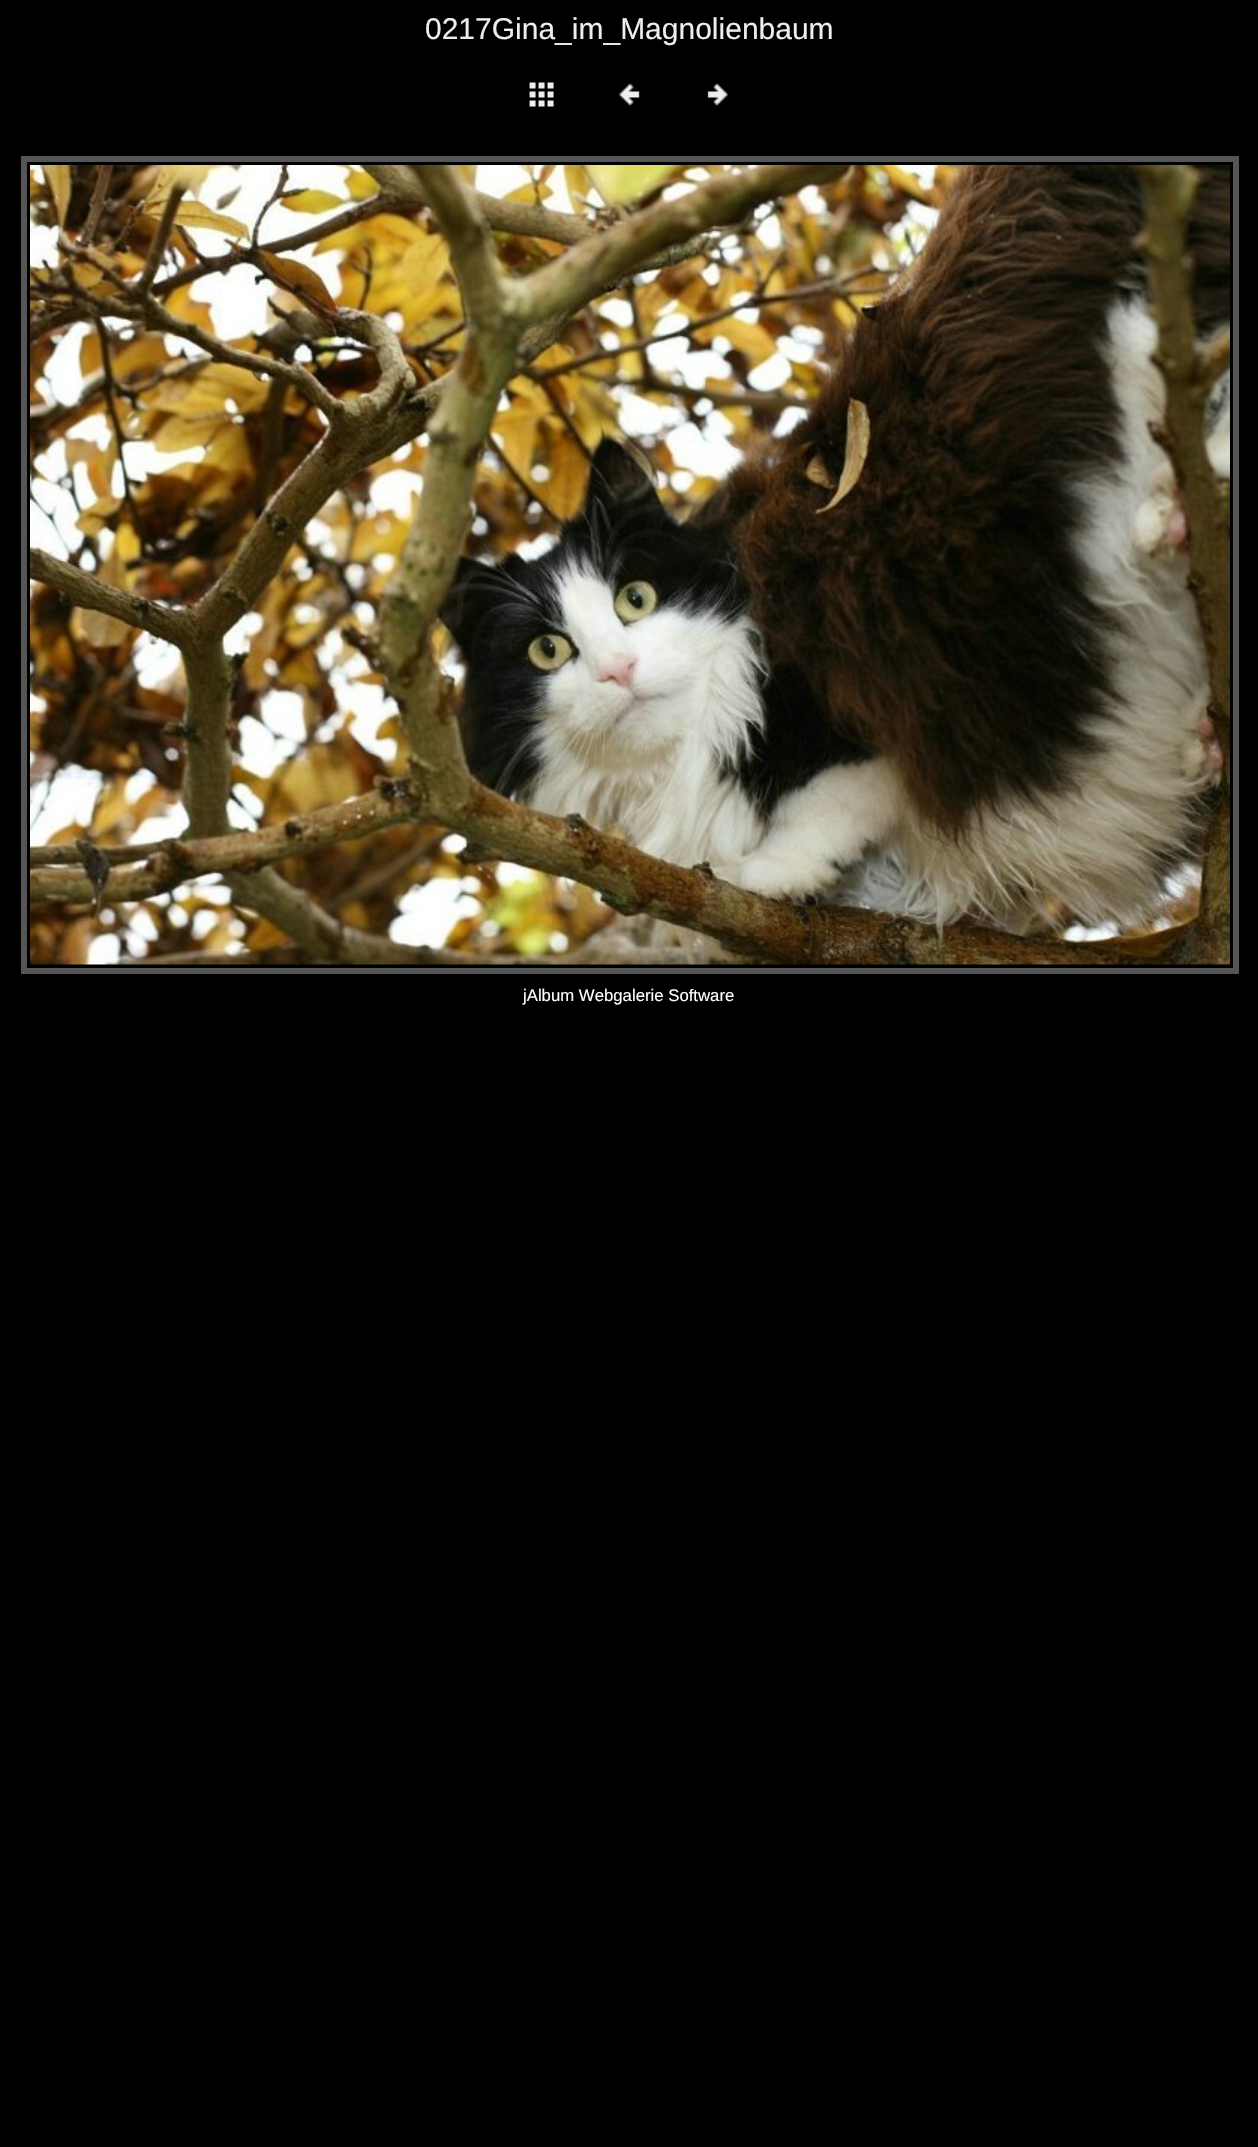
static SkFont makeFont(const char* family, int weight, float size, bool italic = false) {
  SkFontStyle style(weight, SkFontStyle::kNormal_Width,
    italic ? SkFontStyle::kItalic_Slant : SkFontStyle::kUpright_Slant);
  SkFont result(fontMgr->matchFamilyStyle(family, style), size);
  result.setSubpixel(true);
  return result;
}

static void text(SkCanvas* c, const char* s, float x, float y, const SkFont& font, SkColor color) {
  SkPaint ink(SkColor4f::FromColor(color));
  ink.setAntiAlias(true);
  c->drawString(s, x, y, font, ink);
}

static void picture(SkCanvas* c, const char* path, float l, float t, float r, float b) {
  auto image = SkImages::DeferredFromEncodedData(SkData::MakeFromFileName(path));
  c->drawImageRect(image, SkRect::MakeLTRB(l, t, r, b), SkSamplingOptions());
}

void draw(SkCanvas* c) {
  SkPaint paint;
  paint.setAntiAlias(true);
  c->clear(0xff000000);
  SkFont face1 = makeFont("Liberation Sans", 400, 30);
  text(c, "0217Gina_im_Magnolienbaum", 425, 39, face1, 0xffeeeeee);
  picture(c, "img_01.png", 529, 82, 554, 107);
  picture(c, "img_02.png", 619, 83, 640, 106);
  picture(c, "img_03.png", 707, 83, 728, 106);
  paint.setStyle(SkPaint::kStroke_Style);
  paint.setStrokeWidth(6);
  paint.setColor(0xff555555);
  c->drawRect(SkRect::MakeLTRB(24, 159, 1236, 971), paint);
  picture(c, "img_04.png", 30, 165, 1230, 965);
  SkFont face2 = makeFont("Liberation Sans", 400, 16.75f);
  text(c, "jAlbum Webgalerie Software", 523, 1001, face2, 0xffffffff);
}
